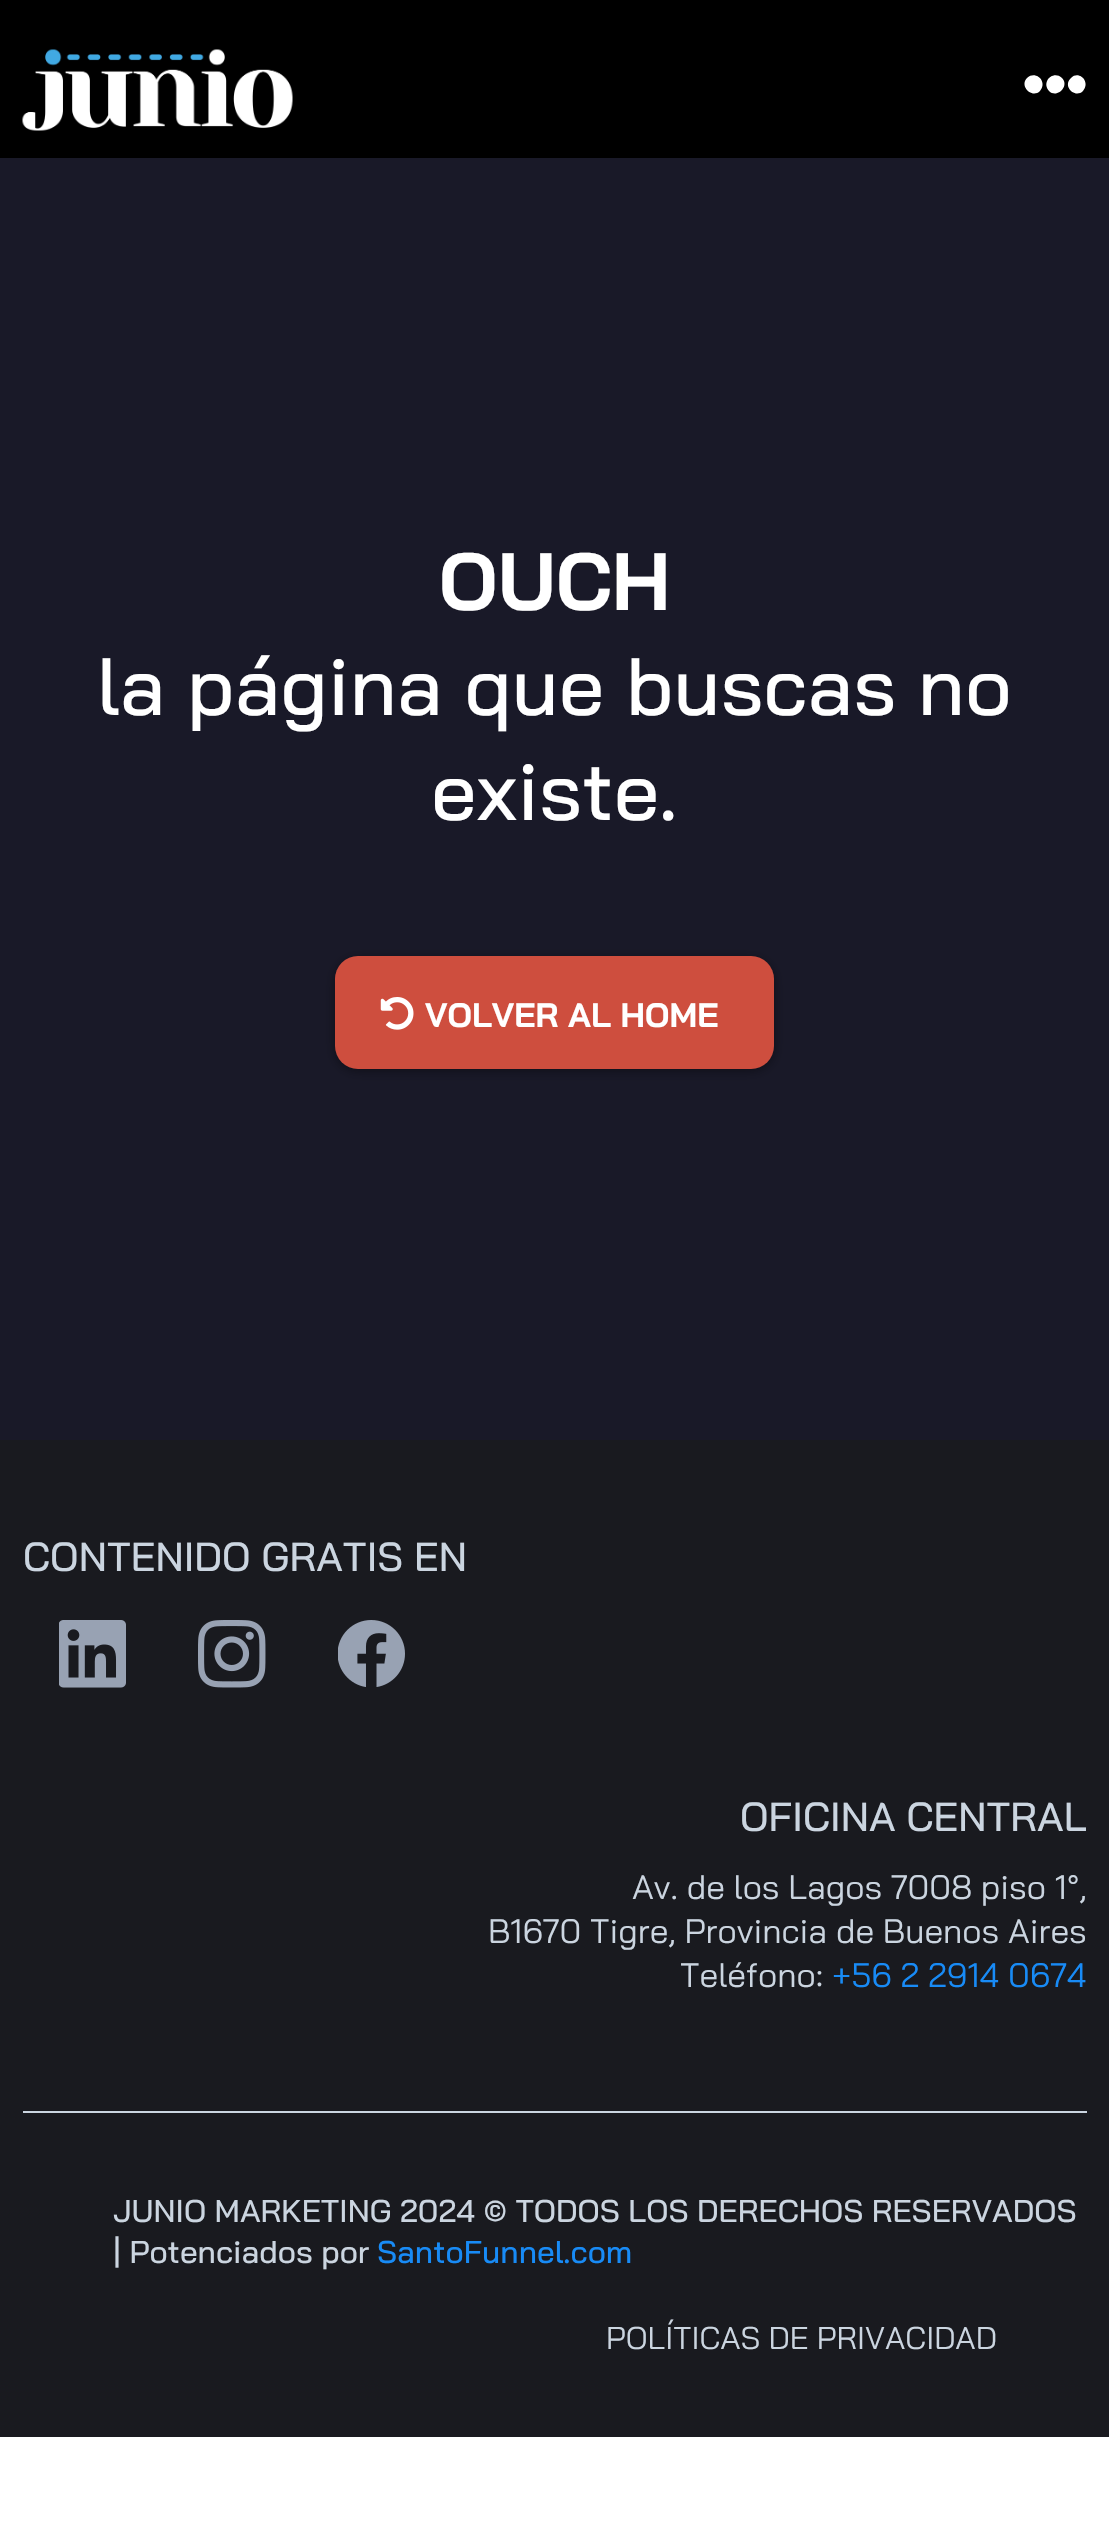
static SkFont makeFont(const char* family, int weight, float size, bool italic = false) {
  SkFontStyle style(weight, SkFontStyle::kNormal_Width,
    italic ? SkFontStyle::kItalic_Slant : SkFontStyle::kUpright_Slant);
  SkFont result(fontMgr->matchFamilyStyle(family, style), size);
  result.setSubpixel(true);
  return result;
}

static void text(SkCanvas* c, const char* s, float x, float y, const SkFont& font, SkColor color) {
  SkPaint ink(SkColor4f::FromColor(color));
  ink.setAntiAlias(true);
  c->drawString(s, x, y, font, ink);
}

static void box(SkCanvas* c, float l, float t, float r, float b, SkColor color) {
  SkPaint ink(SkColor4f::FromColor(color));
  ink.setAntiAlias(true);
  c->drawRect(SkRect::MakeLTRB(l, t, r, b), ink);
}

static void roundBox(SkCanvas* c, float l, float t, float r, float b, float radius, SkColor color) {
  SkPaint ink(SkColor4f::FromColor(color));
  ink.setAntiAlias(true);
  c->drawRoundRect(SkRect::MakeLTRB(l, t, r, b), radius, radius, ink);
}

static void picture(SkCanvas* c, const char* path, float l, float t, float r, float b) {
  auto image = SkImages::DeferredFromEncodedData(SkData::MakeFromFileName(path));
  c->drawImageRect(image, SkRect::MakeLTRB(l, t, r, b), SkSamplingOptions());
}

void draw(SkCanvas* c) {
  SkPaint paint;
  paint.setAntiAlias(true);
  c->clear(0xffffffff);
  box(c, 0, 0, 1109, 158, 0xff000000);
  picture(c, "img_01.png", 22, 49, 293, 131);
  paint.setColor(0xffffffff);
  c->drawPath(SkPathBuilder().moveTo(1062, 78).cubicTo(1070, 86, 1057, 99, 1049, 91).cubicTo(1041, 82, 1053, 70, 1062, 78).close().moveTo(1071, 78).cubicTo(1079, 70, 1091, 82, 1083, 91).cubicTo(1075, 99, 1062, 86, 1071, 78).close().moveTo(1027, 78).cubicTo(1036, 70, 1048, 82, 1040, 91).cubicTo(1032, 99, 1019, 86, 1027, 78).close().detach(), paint);
  box(c, 0, 158, 1109, 1440, 0xff191928);
  SkFont face1 = makeFont("Bai Jamjuree", 700, 81);
  text(c, "OUCH", 439, 610, face1, 0xffffffff);
  SkFont face2 = makeFont("Bai Jamjuree", 500, 81);
  text(c, "la página que buscas no", 97, 715, face2, 0xffffffff);
  text(c, "existe.", 431, 820, face2, 0xffffffff);
  paint.setColor(0x66000000);
  paint.setMaskFilter(SkMaskFilter::MakeBlur(kNormal_SkBlurStyle, 5.5f));
  c->drawRoundRect(SkRect::MakeLTRB(335, 959, 774, 1071), 23, 23, paint);
  paint.setMaskFilter(nullptr);
  roundBox(c, 335, 956, 774, 1069, 23, 0xffce4e3e);
  picture(c, "img_02.png", 380, 997, 414, 1030);
  SkFont face3 = makeFont("Bai Jamjuree", 700, 33.75f);
  text(c, "VOLVER AL HOME", 425, 1027, face3, 0xffffffff);
  box(c, 0, 1440, 1109, 2437, 0xff191a1f);
  SkFont face4 = makeFont("Bai Jamjuree", 500, 40.5f);
  text(c, "CONTENIDO GRATIS EN", 23, 1571, face4, 0xffcbd5e0);
  picture(c, "img_03.png", 59, 1620, 126, 1688);
  picture(c, "img_04.png", 198, 1620, 266, 1688);
  picture(c, "img_05.png", 338, 1620, 405, 1687);
  text(c, "OFICINA CENTRAL", 740, 1831, face4, 0xffcbd5e0);
  SkFont face5 = makeFont("Bai Jamjuree", 400, 33.75f);
  text(c, "Av. de los Lagos 7008 piso 1°,", 632, 1899, face5, 0xffcbd5e0);
  text(c, "B1670 Tigre, Provincia de Buenos Aires", 488, 1943, face5, 0xffcbd5e0);
  text(c, "Teléfono:", 680, 1987, face5, 0xffcbd5e0);
  text(c, "+56 2 2914 0674", 832, 1987, face5, 0xff188bf6);
  box(c, 23, 2111, 1087, 2113, 0xffcbd5e0);
  SkFont face6 = makeFont("Bai Jamjuree", 500, 31.5f);
  text(c, "JUNIO MARKETING 2024 © TODOS LOS DERECHOS RESERVADOS", 113, 2222, face6, 0xffcbd5e0);
  text(c, "| Potenciados por", 113, 2263, face6, 0xffcbd5e0);
  text(c, "SantoFunnel.com", 377, 2263, face6, 0xff188bf6);
  SkFont face7 = makeFont("Bai Jamjuree", 400, 31.5f);
  text(c, "POLÍTICAS DE PRIVACIDAD", 606, 2349, face7, 0xffcbd5e0);
}
